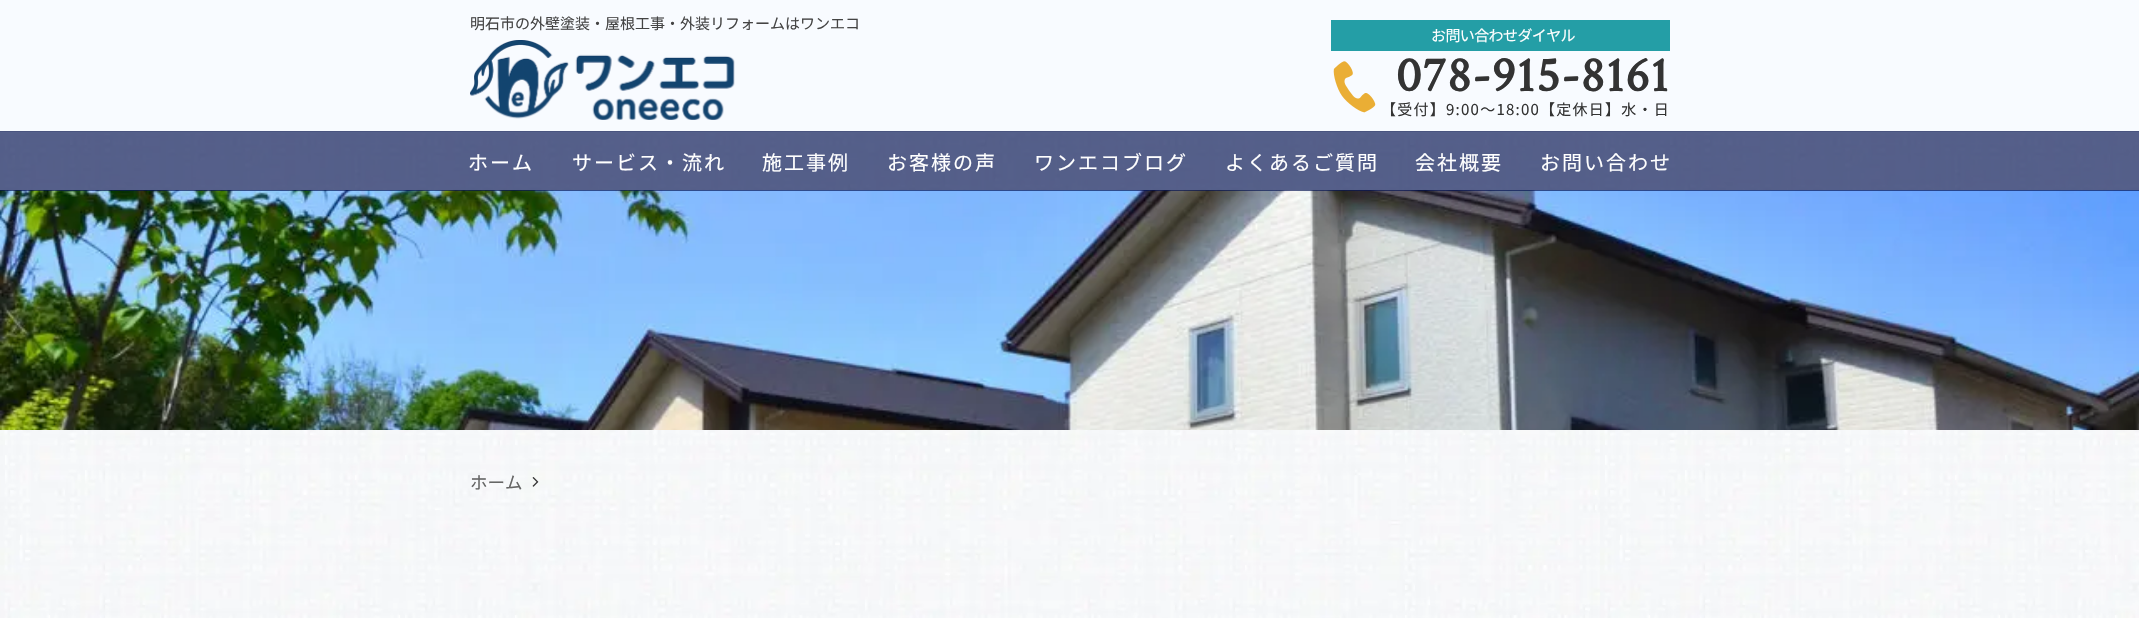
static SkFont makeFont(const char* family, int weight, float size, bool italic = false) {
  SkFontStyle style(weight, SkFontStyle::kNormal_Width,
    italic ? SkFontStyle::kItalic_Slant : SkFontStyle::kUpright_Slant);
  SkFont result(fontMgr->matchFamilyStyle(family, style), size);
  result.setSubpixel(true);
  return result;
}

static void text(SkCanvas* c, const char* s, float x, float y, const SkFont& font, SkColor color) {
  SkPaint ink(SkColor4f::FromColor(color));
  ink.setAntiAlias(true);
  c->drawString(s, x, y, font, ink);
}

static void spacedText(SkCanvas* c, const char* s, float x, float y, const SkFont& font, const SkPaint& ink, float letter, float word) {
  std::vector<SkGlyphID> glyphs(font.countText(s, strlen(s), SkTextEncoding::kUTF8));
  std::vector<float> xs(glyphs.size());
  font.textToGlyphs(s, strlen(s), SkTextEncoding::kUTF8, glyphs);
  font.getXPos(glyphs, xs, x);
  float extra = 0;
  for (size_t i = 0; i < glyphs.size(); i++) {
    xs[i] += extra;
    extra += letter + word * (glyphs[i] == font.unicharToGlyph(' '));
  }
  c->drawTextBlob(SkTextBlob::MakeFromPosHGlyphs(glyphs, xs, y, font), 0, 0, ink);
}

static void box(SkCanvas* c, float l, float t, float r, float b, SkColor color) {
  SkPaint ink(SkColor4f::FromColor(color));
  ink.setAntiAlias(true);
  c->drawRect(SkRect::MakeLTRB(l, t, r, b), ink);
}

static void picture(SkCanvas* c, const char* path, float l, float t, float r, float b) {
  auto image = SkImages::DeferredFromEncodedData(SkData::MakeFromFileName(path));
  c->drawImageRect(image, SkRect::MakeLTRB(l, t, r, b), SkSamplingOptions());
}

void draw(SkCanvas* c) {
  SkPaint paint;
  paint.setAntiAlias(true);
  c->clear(0xffffffff);
  picture(c, "img_01.png", 0, 133, 2139, 618);
  box(c, 0, 0, 2139, 133, 0xfff8fbff);
  box(c, 0, 131, 2139, 132, 0xffd4d7da);
  SkFont face1 = makeFont("Noto Sans JP", 400, 15);
  text(c, "明石市の外壁塗装・屋根工事・外装リフォームはワンエコ", 470, 29, face1, 0xff444444);
  picture(c, "img_02.png", 470, 40, 735, 120);
  box(c, 1331, 20, 1670, 51, 0xff249ea6);
  paint.setColor(0xffffffff);
  spacedText(c, "お問い合わせダイヤル", 1431, 41, face1, paint, -0.6f, 0);
  picture(c, "img_03.png", 1333, 61, 1376, 113);
  SkFont face2 = makeFont("Crimson Text", 700, 50);
  paint.setColor(0xff333333);
  spacedText(c, "078-915-8161", 1396, 91, face2, paint, 1.25f, 0);
  spacedText(c, "【受付】9:00～18:00【定休日】水・日", 1381, 115, face1, paint, 1.25f, 0);
  picture(c, "img_04.png", 0, 190, 2139, 430);
  box(c, 0, 131, 2139, 191, 0xab041452);
  SkFont face3 = makeFont("Noto Sans JP", 400, 20);
  paint.setColor(0xffffffff);
  spacedText(c, "ホーム", 468, 170, face3, paint, 2, 0);
  spacedText(c, "サービス・流れ", 572, 170, face3, paint, 2, 0);
  spacedText(c, "施工事例", 762, 170, face3, paint, 2, 0);
  spacedText(c, "お客様の声", 887, 170, face3, paint, 2, 0);
  spacedText(c, "ワンエコブログ", 1034, 170, face3, paint, 2, 0);
  spacedText(c, "よくあるご質問", 1225, 170, face3, paint, 2, 0);
  spacedText(c, "会社概要", 1415, 170, face3, paint, 2, 0);
  spacedText(c, "お問い合わせ", 1540, 170, face3, paint, 2, 0);
  SkFont face4 = makeFont("Noto Sans JP", 400, 17.5f);
  text(c, "ホーム", 470, 489, face4, 0xff666666);
  picture(c, "img_05.png", 532, 477, 539, 487);
}
